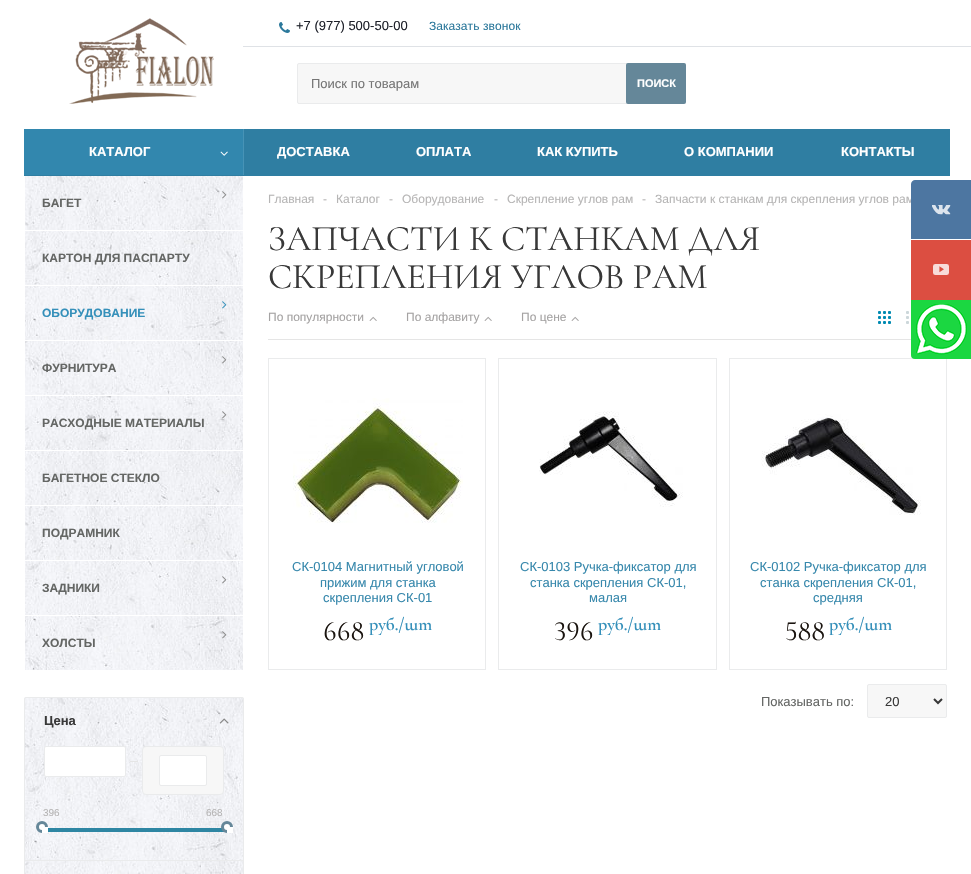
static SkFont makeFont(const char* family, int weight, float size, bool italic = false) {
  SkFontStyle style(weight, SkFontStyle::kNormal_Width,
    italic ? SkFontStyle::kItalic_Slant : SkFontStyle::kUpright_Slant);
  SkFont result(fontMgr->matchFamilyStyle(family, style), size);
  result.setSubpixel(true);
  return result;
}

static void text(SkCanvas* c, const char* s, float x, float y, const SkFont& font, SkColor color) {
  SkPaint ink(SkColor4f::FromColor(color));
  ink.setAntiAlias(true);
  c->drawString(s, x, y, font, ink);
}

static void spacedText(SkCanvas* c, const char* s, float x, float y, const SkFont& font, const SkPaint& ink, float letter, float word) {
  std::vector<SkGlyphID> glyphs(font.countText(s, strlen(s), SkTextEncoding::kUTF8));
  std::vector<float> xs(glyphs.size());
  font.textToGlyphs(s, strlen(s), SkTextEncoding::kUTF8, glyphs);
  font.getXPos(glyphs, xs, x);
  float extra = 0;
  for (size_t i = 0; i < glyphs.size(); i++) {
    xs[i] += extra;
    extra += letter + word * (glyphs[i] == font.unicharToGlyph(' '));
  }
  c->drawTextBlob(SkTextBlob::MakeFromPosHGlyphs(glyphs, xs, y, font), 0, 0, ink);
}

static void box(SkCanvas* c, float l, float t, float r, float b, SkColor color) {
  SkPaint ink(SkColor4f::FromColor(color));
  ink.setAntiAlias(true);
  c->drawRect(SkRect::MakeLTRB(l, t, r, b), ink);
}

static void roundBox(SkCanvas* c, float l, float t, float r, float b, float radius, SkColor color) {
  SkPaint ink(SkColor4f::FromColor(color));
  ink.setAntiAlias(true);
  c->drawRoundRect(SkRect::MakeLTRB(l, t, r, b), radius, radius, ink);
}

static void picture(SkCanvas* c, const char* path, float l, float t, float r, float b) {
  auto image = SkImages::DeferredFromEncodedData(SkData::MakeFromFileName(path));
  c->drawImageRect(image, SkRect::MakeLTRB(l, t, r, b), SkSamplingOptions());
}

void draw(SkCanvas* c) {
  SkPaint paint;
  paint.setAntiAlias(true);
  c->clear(0xffffffff);
  box(c, 243, 46, 971, 47, 0xffdfe2e6);
  picture(c, "img_01.png", 279, 22, 290, 33);
  SkFont face1 = makeFont("Liberation Sans", 400, 13);
  text(c, "+7 (977) 500-50-00", 296, 30, face1, 0xff1d2029);
  SkFont face2 = makeFont("Liberation Sans", 400, 12);
  paint.setColor(0xff2b789b);
  spacedText(c, "Заказать звонок", 429, 30, face2, paint, 0.1f, 0);
  picture(c, "img_02.png", 69, 18, 214, 104);
  paint.setColor(0xfff7f7f7);
  c->drawRoundRect(SkRect::MakeLTRB(297.5f, 63.5f, 685.5f, 103.5f), 1.5f, 1.5f, paint);
  paint.setStyle(SkPaint::kStroke_Style);
  paint.setStrokeWidth(1);
  paint.setColor(0xffeaebec);
  c->drawRoundRect(SkRect::MakeLTRB(297.5f, 63.5f, 685.5f, 103.5f), 1.5f, 1.5f, paint);
  text(c, "Поиск по товарам", 311, 88, face1, 0xff757575);
  roundBox(c, 626, 63, 686, 104, 2, 0xff658799);
  SkFont face3 = makeFont("Liberation Sans", 700, 11);
  text(c, "ПОИСК", 637, 87, face3, 0xffffffff);
  box(c, 24, 129, 950, 176, 0xff2f7ea2);
  box(c, 24, 129, 243, 175, 0xff3287ae);
  SkFont face4 = makeFont("Liberation Sans", 700, 13);
  text(c, "КАТАЛОГ", 89, 156, face4, 0xffffffff);
  box(c, 243, 129, 244, 175, 0xff4793b6);
  picture(c, "img_03.png", 220, 151, 228, 156);
  text(c, "ДОСТАВКА", 277, 156, face4, 0xffffffff);
  text(c, "ОПЛАТА", 416, 156, face4, 0xffffffff);
  text(c, "КАК КУПИТЬ", 537, 156, face4, 0xffffffff);
  text(c, "О КОМПАНИИ", 684, 156, face4, 0xffffffff);
  text(c, "КОНТАКТЫ", 841, 156, face4, 0xffffffff);
  picture(c, "img_04.png", 25, 176, 243, 670);
  picture(c, "img_05.png", 222, 191, 227, 199);
  SkFont face5 = makeFont("Liberation Sans", 700, 12);
  text(c, "БАГЕТ", 42, 207, face5, 0xff646664);
  box(c, 24, 230, 244, 231, 0xffffffff);
  text(c, "КАРТОН ДЛЯ ПАСПАРТУ", 42, 262, face5, 0xff646664);
  box(c, 24, 285, 244, 286, 0xffffffff);
  picture(c, "img_06.png", 222, 301, 227, 309);
  text(c, "ОБОРУДОВАНИЕ", 42, 317, face5, 0xff3590ba);
  box(c, 24, 340, 244, 341, 0xffffffff);
  picture(c, "img_07.png", 222, 356, 227, 364);
  text(c, "ФУРНИТУРА", 42, 372, face5, 0xff646664);
  box(c, 24, 395, 244, 396, 0xffffffff);
  picture(c, "img_08.png", 222, 411, 227, 419);
  text(c, "РАСХОДНЫЕ МАТЕРИАЛЫ", 42, 427, face5, 0xff646664);
  box(c, 24, 450, 244, 451, 0xffffffff);
  text(c, "БАГЕТНОЕ СТЕКЛО", 42, 482, face5, 0xff646664);
  box(c, 24, 505, 244, 506, 0xffffffff);
  text(c, "ПОДРАМНИК", 42, 537, face5, 0xff646664);
  box(c, 24, 560, 244, 561, 0xffffffff);
  picture(c, "img_09.png", 222, 576, 227, 584);
  text(c, "ЗАДНИКИ", 42, 592, face5, 0xff646664);
  paint.setColor(0xffffffff);
  c->drawRect(SkRect::MakeLTRB(24.5f, 615.5f, 243.5f, 670.5f), paint);
  picture(c, "img_10.png", 222, 631, 227, 639);
  text(c, "ХОЛСТЫ", 42, 647, face5, 0xff646664);
  picture(c, "img_11.png", 24, 697, 244, 874);
  paint.setColor(0xffeaebec);
  c->drawRoundRect(SkRect::MakeLTRB(24.5f, 697.5f, 243.5f, 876.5f), 1.5f, 1.5f, paint);
  box(c, 25, 860, 243, 861, 0xffeaebec);
  text(c, "Цена", 44, 725, face4, 0xff383838);
  picture(c, "img_12.png", 219, 718, 229, 724);
  paint.setStyle(SkPaint::kFill_Style);
  paint.setColor(0xffffffff);
  c->drawRoundRect(SkRect::MakeLTRB(44.5f, 746.5f, 125.5f, 776.5f), 1.5f, 1.5f, paint);
  paint.setStyle(SkPaint::kStroke_Style);
  paint.setColor(0xffeaebec);
  c->drawRoundRect(SkRect::MakeLTRB(44.5f, 746.5f, 125.5f, 776.5f), 1.5f, 1.5f, paint);
  box(c, 130, 761, 138, 762, 0xffe5e5e5);
  paint.setStyle(SkPaint::kFill_Style);
  paint.setColor(0xfff7f7f7);
  c->drawRoundRect(SkRect::MakeLTRB(142.5f, 746.5f, 223.5f, 794.5f), 3.5f, 3.5f, paint);
  paint.setStyle(SkPaint::kStroke_Style);
  paint.setColor(0xffeaebec);
  c->drawRoundRect(SkRect::MakeLTRB(142.5f, 746.5f, 223.5f, 794.5f), 3.5f, 3.5f, paint);
  paint.setStyle(SkPaint::kFill_Style);
  paint.setColor(0xffffffff);
  c->drawRoundRect(SkRect::MakeLTRB(159.5f, 755.5f, 206.5f, 785.5f), 1.5f, 1.5f, paint);
  paint.setStyle(SkPaint::kStroke_Style);
  paint.setColor(0xffeaebec);
  c->drawRoundRect(SkRect::MakeLTRB(159.5f, 755.5f, 206.5f, 785.5f), 1.5f, 1.5f, paint);
  SkFont face6 = makeFont("Liberation Sans", 400, 10);
  text(c, "396", 43, 816, face6, 0xffb6b5b5);
  text(c, "668", 206, 816, face6, 0xffb6b5b5);
  box(c, 44, 828, 224, 832, 0xff2e86a3);
  paint.setStyle(SkPaint::kFill_Style);
  paint.setColor(0xffffffff);
  c->drawCircle(42, 827, 4.5f, paint);
  paint.setStyle(SkPaint::kStroke_Style);
  paint.setStrokeWidth(3);
  paint.setColor(0xff658799);
  c->drawCircle(42, 827, 4.5f, paint);
  box(c, 42, 827, 48, 833, 0xffffffff);
  paint.setStyle(SkPaint::kFill_Style);
  paint.setColor(0xffffffff);
  c->drawCircle(227, 827, 4.5f, paint);
  paint.setStyle(SkPaint::kStroke_Style);
  paint.setColor(0xff658799);
  c->drawCircle(227, 827, 4.5f, paint);
  box(c, 227, 827, 233, 833, 0xffffffff);
  text(c, "Главная", 268, 203, face2, 0xffb6b5b5);
  text(c, "-", 323, 203, face2, 0xffb6b5b5);
  text(c, "Каталог", 336, 203, face2, 0xffb6b5b5);
  text(c, "-", 389, 203, face2, 0xffb6b5b5);
  text(c, "Оборудование", 402, 203, face2, 0xffb6b5b5);
  text(c, "-", 494, 203, face2, 0xffb6b5b5);
  text(c, "Скрепление углов рам", 507, 203, face2, 0xffb6b5b5);
  text(c, "-", 642, 203, face2, 0xffb6b5b5);
  text(c, "Запчасти к станкам для скрепления углов рам", 655, 203, face2, 0xffb6b5b5);
  SkFont face7 = makeFont("Cormorant Infant", 400, 36);
  text(c, "ЗАПЧАСТИ К СТАНКАМ ДЛЯ", 268, 250, face7, 0xff383838);
  text(c, "СКРЕПЛЕНИЯ УГЛОВ РАМ", 268, 288, face7, 0xff383838);
  box(c, 268, 339, 911, 340, 0xffe5e5e5);
  text(c, "По популярности", 268, 321, face2, 0xffa5a3a3);
  picture(c, "img_13.png", 369, 316, 377, 321);
  text(c, "По алфавиту", 406, 321, face2, 0xffa5a3a3);
  picture(c, "img_13.png", 484, 316, 492, 321);
  text(c, "По цене", 521, 321, face2, 0xffa5a3a3);
  picture(c, "img_13.png", 571, 316, 579, 321);
  picture(c, "img_14.png", 878, 311, 891, 324);
  picture(c, "img_15.png", 906, 311, 909, 324);
  paint.setStrokeWidth(1);
  paint.setColor(0xffeaebec);
  c->drawRect(SkRect::MakeLTRB(268.5f, 358.5f, 485.5f, 669.5f), paint);
  picture(c, "img_16.png", 293, 398, 463, 523);
  text(c, "СК-0104 Магнитный угловой", 292, 571, face1, 0xff3788ac);
  text(c, "прижим для станка", 320, 587, face1, 0xff3788ac);
  text(c, "скрепления СК-01", 323, 602, face1, 0xff3788ac);
  SkFont face8 = makeFont("Cormorant Infant", 400, 28);
  text(c, "668", 323, 640, face8, 0xff1a140f);
  SkFont face9 = makeFont("Cormorant Infant", 600, 18);
  text(c, "руб./шт", 369, 630, face9, 0xff3590ba);
  c->drawRect(SkRect::MakeLTRB(498.5f, 358.5f, 716.5f, 669.5f), paint);
  picture(c, "img_17.png", 539, 411, 683, 507);
  text(c, "СК-0103 Ручка-фиксатор для", 520, 571, face1, 0xff3788ac);
  text(c, "станка скрепления СК-01,", 530, 587, face1, 0xff3788ac);
  text(c, "малая", 589, 602, face1, 0xff3788ac);
  text(c, "396", 554, 640, face8, 0xff1a140f);
  text(c, "руб./шт", 598, 630, face9, 0xff3590ba);
  c->drawRect(SkRect::MakeLTRB(729.5f, 358.5f, 946.5f, 669.5f), paint);
  picture(c, "img_18.png", 761, 414, 921, 515);
  text(c, "СК-0102 Ручка-фиксатор для", 750, 571, face1, 0xff3788ac);
  text(c, "станка скрепления СК-01,", 760, 587, face1, 0xff3788ac);
  text(c, "средняя", 813, 602, face1, 0xff3788ac);
  text(c, "588", 785, 640, face8, 0xff1a140f);
  text(c, "руб./шт", 829, 630, face9, 0xff3590ba);
  text(c, "Показывать по:", 761, 706, face1, 0xff646664);
  paint.setStyle(SkPaint::kFill_Style);
  paint.setColor(0xfff7f7f7);
  c->drawRoundRect(SkRect::MakeLTRB(867.5f, 684.5f, 946.5f, 717.5f), 1.5f, 1.5f, paint);
  paint.setStyle(SkPaint::kStroke_Style);
  paint.setColor(0xffeaebec);
  c->drawRoundRect(SkRect::MakeLTRB(867.5f, 684.5f, 946.5f, 717.5f), 1.5f, 1.5f, paint);
  paint.setStrokeWidth(2);
  paint.setColor(0xff383838);
  c->drawPath(SkPathBuilder().moveTo(934, 699).lineTo(938, 703).lineTo(942, 699).detach(), paint);
  text(c, "20", 885, 706, face1, 0xff383838);
  paint.setStyle(SkPaint::kFill_Style);
  paint.setColor(0xff4d76a1);
  c->drawPath(SkPathBuilder().moveTo(915, 180).lineTo(971, 180).lineTo(971, 239).lineTo(911, 239).lineTo(911, 184).cubicTo(911, 182, 913, 180, 915, 180).close().detach(), paint);
  picture(c, "img_19.png", 932, 205, 951, 215);
  box(c, 911, 240, 971, 300, 0xffdc4e41);
  picture(c, "img_20.png", 933, 264, 949, 275);
  picture(c, "img_21.png", 911, 300, 971, 359);
}
